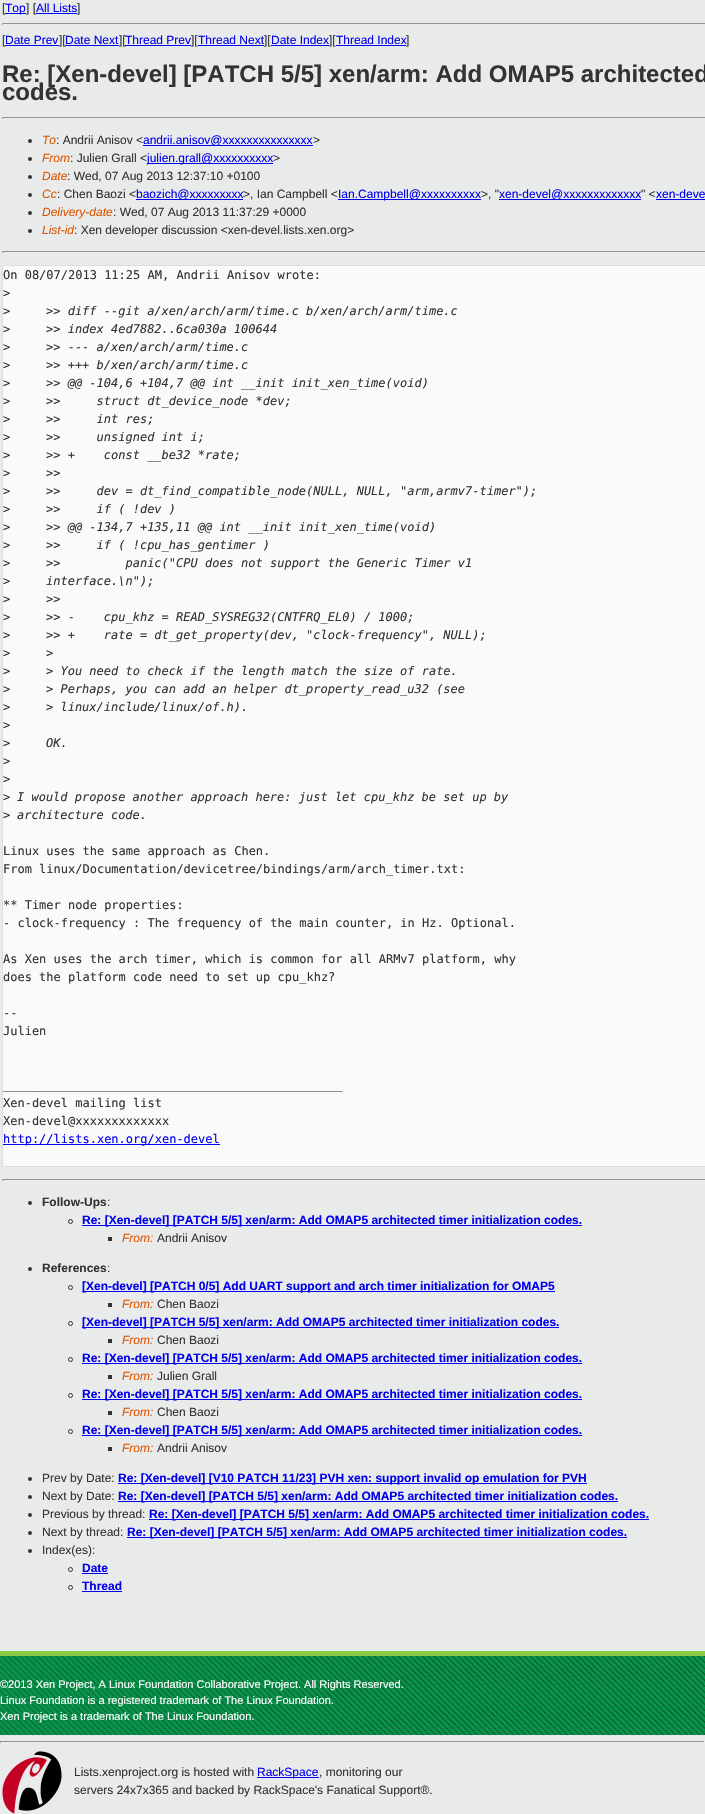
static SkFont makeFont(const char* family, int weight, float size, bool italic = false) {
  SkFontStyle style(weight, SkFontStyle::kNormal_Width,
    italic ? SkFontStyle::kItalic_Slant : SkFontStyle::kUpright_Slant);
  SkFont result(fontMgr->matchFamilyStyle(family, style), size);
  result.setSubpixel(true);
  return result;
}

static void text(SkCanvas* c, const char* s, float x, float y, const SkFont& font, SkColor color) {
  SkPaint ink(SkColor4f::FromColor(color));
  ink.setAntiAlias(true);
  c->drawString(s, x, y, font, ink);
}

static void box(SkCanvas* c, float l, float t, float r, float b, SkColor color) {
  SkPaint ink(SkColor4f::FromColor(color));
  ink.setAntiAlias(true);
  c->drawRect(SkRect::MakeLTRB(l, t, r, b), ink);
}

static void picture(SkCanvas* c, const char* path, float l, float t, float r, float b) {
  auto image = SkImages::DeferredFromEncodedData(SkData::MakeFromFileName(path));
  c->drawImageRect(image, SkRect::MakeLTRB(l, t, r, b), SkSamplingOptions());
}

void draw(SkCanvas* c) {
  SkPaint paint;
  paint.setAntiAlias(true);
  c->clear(0xffe9eaea);
  SkFont face1 = makeFont("Liberation Sans", 400, 12);
  text(c, "[", 2, 12, face1, 0xff333333);
  box(c, 5, 13, 26, 14, 0xff0000ee);
  text(c, "Top", 5, 12, face1, 0xff0000ee);
  text(c, "] [", 26, 12, face1, 0xff333333);
  text(c, "All Lists", 36, 12, face1, 0xff0000ee);
  text(c, "]", 77, 12, face1, 0xff333333);
  box(c, 36, 13, 77, 14, 0xff0000ee);
  box(c, 2, 23, 705, 24, 0xff939393);
  box(c, 2, 24, 705, 25, 0xffeeeeee);
  box(c, 2, 23, 3, 25, 0xff9f9f9f);
  text(c, "[", 2, 44, face1, 0xff333333);
  text(c, "Date Prev", 5, 44, face1, 0xff0000ee);
  box(c, 5, 45, 59, 46, 0xff0000ee);
  text(c, "][", 59, 44, face1, 0xff333333);
  text(c, "Date Next", 65, 44, face1, 0xff0000ee);
  box(c, 65, 45, 119, 46, 0xff0000ee);
  text(c, "][", 119, 44, face1, 0xff333333);
  text(c, "Thread Prev", 125, 44, face1, 0xff0000ee);
  box(c, 125, 45, 191, 46, 0xff0000ee);
  text(c, "][", 191, 44, face1, 0xff333333);
  text(c, "Thread Next", 198, 44, face1, 0xff0000ee);
  box(c, 198, 45, 264, 46, 0xff0000ee);
  text(c, "][", 264, 44, face1, 0xff333333);
  text(c, "Date Index", 271, 44, face1, 0xff0000ee);
  box(c, 271, 45, 329, 46, 0xff0000ee);
  text(c, "][", 329, 44, face1, 0xff333333);
  text(c, "Thread Index", 336, 44, face1, 0xff0000ee);
  box(c, 336, 45, 406, 46, 0xff0000ee);
  text(c, "]", 406, 44, face1, 0xff333333);
  SkFont face2 = makeFont("Liberation Sans", 700, 24);
  text(c, "Re: [Xen-devel] [PATCH 5/5] xen/arm: Add OMAP5 architected", 2, 82, face2, 0xff333333);
  text(c, "codes.", 2, 100, face2, 0xff333333);
  box(c, 2, 117, 705, 118, 0xff939393);
  box(c, 2, 118, 705, 119, 0xffeeeeee);
  box(c, 2, 117, 3, 119, 0xff9f9f9f);
  paint.setColor(0xff333333);
  c->drawCircle(30, 141, 2, paint);
  SkFont face3 = makeFont("Liberation Sans", 400, 12, true);
  text(c, "To", 42, 144, face3, 0xffdd5500);
  text(c, ": Andrii Anisov <", 56, 144, face1, 0xff333333);
  box(c, 143, 145, 313, 146, 0xff0000ee);
  text(c, "andrii.anisov@xxxxxxxxxxxxxxx", 143, 144, face1, 0xff0000ee);
  text(c, ">", 313, 144, face1, 0xff333333);
  c->drawCircle(30, 159, 2, paint);
  text(c, "From", 42, 162, face3, 0xffdd5500);
  text(c, ": Julien Grall <", 70, 162, face1, 0xff333333);
  box(c, 147, 163, 273, 164, 0xff0000ee);
  text(c, "julien.grall@xxxxxxxxxx", 147, 162, face1, 0xff0000ee);
  text(c, ">", 273, 162, face1, 0xff333333);
  c->drawCircle(30, 177, 2, paint);
  text(c, "Date", 42, 180, face3, 0xffdd5500);
  text(c, ": Wed, 07 Aug 2013 12:37:10 +0100", 67, 180, face1, 0xff333333);
  c->drawCircle(30, 195, 2, paint);
  text(c, "Cc", 42, 198, face3, 0xffdd5500);
  text(c, ": Chen Baozi <", 57, 198, face1, 0xff333333);
  box(c, 136, 199, 243, 200, 0xff0000ee);
  text(c, "baozich@xxxxxxxxx", 136, 198, face1, 0xff0000ee);
  text(c, ">, Ian Campbell <", 243, 198, face1, 0xff333333);
  box(c, 338, 199, 481, 200, 0xff0000ee);
  text(c, "Ian.Campbell@xxxxxxxxxx", 338, 198, face1, 0xff0000ee);
  text(c, ">, \"", 481, 198, face1, 0xff333333);
  box(c, 499, 199, 641, 200, 0xff0000ee);
  text(c, "xen-devel@xxxxxxxxxxxxx", 499, 198, face1, 0xff0000ee);
  text(c, "\" <", 641, 198, face1, 0xff333333);
  text(c, "xen-deve", 656, 198, face1, 0xff0000ee);
  box(c, 656, 199, 705, 200, 0xff0000ee);
  c->drawCircle(30, 213, 2, paint);
  text(c, "Delivery-date", 42, 216, face3, 0xffdd5500);
  text(c, ": Wed, 07 Aug 2013 11:37:29 +0000", 113, 216, face1, 0xff333333);
  c->drawCircle(30, 231, 2, paint);
  text(c, "List-id", 42, 234, face3, 0xffdd5500);
  text(c, ": Xen developer discussion <xen-devel.lists.xen.org>", 74, 234, face1, 0xff333333);
  box(c, 2, 251, 705, 252, 0xff939393);
  box(c, 2, 252, 705, 253, 0xffeeeeee);
  box(c, 2, 251, 3, 253, 0xff9f9f9f);
  paint.setColor(0xfffafafa);
  c->drawRect(SkRect::MakeLTRB(2.5f, 265.5f, 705.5f, 1166.5f), paint);
  paint.setStyle(SkPaint::kStroke_Style);
  paint.setStrokeWidth(1);
  paint.setColor(0xffdddddd);
  c->drawRect(SkRect::MakeLTRB(2.5f, 265.5f, 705.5f, 1166.5f), paint);
  SkFont face4 = makeFont("DejaVu Sans Mono", 400, 12);
  text(c, "On 08/07/2013 11:25 AM, Andrii Anisov wrote:", 3, 279, face4, 0xff333333);
  text(c, ">", 3, 297, face4, 0xff333333);
  text(c, ">", 3, 315, face4, 0xff333333);
  SkFont face5 = makeFont("DejaVu Sans Mono", 400, 12, true);
  text(c, ">> diff --git a/xen/arch/arm/time.c b/xen/arch/arm/time.c", 46, 315, face5, 0xff333333);
  text(c, ">", 3, 333, face4, 0xff333333);
  text(c, ">> index 4ed7882..6ca030a 100644", 46, 333, face5, 0xff333333);
  text(c, ">", 3, 351, face4, 0xff333333);
  text(c, ">> --- a/xen/arch/arm/time.c", 46, 351, face5, 0xff333333);
  text(c, ">", 3, 369, face4, 0xff333333);
  text(c, ">> +++ b/xen/arch/arm/time.c", 46, 369, face5, 0xff333333);
  text(c, ">", 3, 387, face4, 0xff333333);
  text(c, ">> @@ -104,6 +104,7 @@ int __init init_xen_time(void)", 46, 387, face5, 0xff333333);
  text(c, ">", 3, 405, face4, 0xff333333);
  text(c, ">>     struct dt_device_node *dev;", 46, 405, face5, 0xff333333);
  text(c, ">", 3, 423, face4, 0xff333333);
  text(c, ">>     int res;", 46, 423, face5, 0xff333333);
  text(c, ">", 3, 441, face4, 0xff333333);
  text(c, ">>     unsigned int i;", 46, 441, face5, 0xff333333);
  text(c, ">", 3, 459, face4, 0xff333333);
  text(c, ">> +    const __be32 *rate;", 46, 459, face5, 0xff333333);
  text(c, ">", 3, 477, face4, 0xff333333);
  text(c, ">>", 46, 477, face5, 0xff333333);
  text(c, ">", 3, 495, face4, 0xff333333);
  text(c, ">>     dev = dt_find_compatible_node(NULL, NULL, \"arm,armv7-timer\");", 46, 495, face5, 0xff333333);
  text(c, ">", 3, 513, face4, 0xff333333);
  text(c, ">>     if ( !dev )", 46, 513, face5, 0xff333333);
  text(c, ">", 3, 531, face4, 0xff333333);
  text(c, ">> @@ -134,7 +135,11 @@ int __init init_xen_time(void)", 46, 531, face5, 0xff333333);
  text(c, ">", 3, 549, face4, 0xff333333);
  text(c, ">>     if ( !cpu_has_gentimer )", 46, 549, face5, 0xff333333);
  text(c, ">", 3, 567, face4, 0xff333333);
  text(c, ">>         panic(\"CPU does not support the Generic Timer v1", 46, 567, face5, 0xff333333);
  text(c, ">", 3, 585, face4, 0xff333333);
  text(c, "interface.\\n\");", 46, 585, face5, 0xff333333);
  text(c, ">", 3, 603, face4, 0xff333333);
  text(c, ">>", 46, 603, face5, 0xff333333);
  text(c, ">", 3, 621, face4, 0xff333333);
  text(c, ">> -    cpu_khz = READ_SYSREG32(CNTFRQ_EL0) / 1000;", 46, 621, face5, 0xff333333);
  text(c, ">", 3, 639, face4, 0xff333333);
  text(c, ">> +    rate = dt_get_property(dev, \"clock-frequency\", NULL);", 46, 639, face5, 0xff333333);
  text(c, ">", 3, 657, face4, 0xff333333);
  text(c, ">", 46, 657, face5, 0xff333333);
  text(c, ">", 3, 675, face4, 0xff333333);
  text(c, "> You need to check if the length match the size of rate.", 46, 675, face5, 0xff333333);
  text(c, ">", 3, 693, face4, 0xff333333);
  text(c, "> Perhaps, you can add an helper dt_property_read_u32 (see", 46, 693, face5, 0xff333333);
  text(c, ">", 3, 711, face4, 0xff333333);
  text(c, "> linux/include/linux/of.h).", 46, 711, face5, 0xff333333);
  text(c, ">", 3, 729, face4, 0xff333333);
  text(c, ">", 3, 747, face4, 0xff333333);
  text(c, "OK.", 46, 747, face5, 0xff333333);
  text(c, ">", 3, 765, face4, 0xff333333);
  text(c, ">", 3, 783, face4, 0xff333333);
  text(c, ">", 3, 801, face4, 0xff333333);
  text(c, "I would propose another approach here: just let cpu_khz be set up by", 17, 801, face5, 0xff333333);
  text(c, ">", 3, 819, face4, 0xff333333);
  text(c, "architecture code.", 17, 819, face5, 0xff333333);
  text(c, "Linux uses the same approach as Chen.", 3, 855, face4, 0xff333333);
  text(c, "From linux/Documentation/devicetree/bindings/arm/arch_timer.txt:", 3, 873, face4, 0xff333333);
  text(c, "** Timer node properties:", 3, 909, face4, 0xff333333);
  text(c, "- clock-frequency : The frequency of the main counter, in Hz. Optional.", 3, 927, face4, 0xff333333);
  text(c, "As Xen uses the arch timer, which is common for all ARMv7 platform, why", 3, 963, face4, 0xff333333);
  text(c, "does the platform code need to set up cpu_khz?", 3, 981, face4, 0xff333333);
  text(c, "--", 3, 1017, face4, 0xff333333);
  text(c, "Julien", 3, 1035, face4, 0xff333333);
  text(c, "_______________________________________________", 3, 1089, face4, 0xff333333);
  text(c, "Xen-devel mailing list", 3, 1107, face4, 0xff333333);
  text(c, "Xen-devel@xxxxxxxxxxxxx", 3, 1125, face4, 0xff333333);
  box(c, 3, 1144, 220, 1145, 0xff0000ee);
  text(c, "http://lists.xen.org/xen-devel", 3, 1143, face4, 0xff0000ee);
  box(c, 2, 1179, 705, 1180, 0xff939393);
  box(c, 2, 1180, 705, 1181, 0xffeeeeee);
  box(c, 2, 1179, 3, 1181, 0xff9f9f9f);
  paint.setStyle(SkPaint::kFill_Style);
  paint.setColor(0xff333333);
  c->drawCircle(30, 1203, 2, paint);
  SkFont face6 = makeFont("Liberation Sans", 700, 12);
  text(c, "Follow-Ups", 42, 1206, face6, 0xff333333);
  text(c, ":", 107, 1206, face1, 0xff333333);
  paint.setStyle(SkPaint::kStroke_Style);
  c->drawCircle(70.5f, 1221.5f, 2, paint);
  box(c, 82, 1225, 582, 1226, 0xff0000ee);
  text(c, "Re: [Xen-devel] [PATCH 5/5] xen/arm: Add OMAP5 architected timer initialization codes.", 82, 1224, face6, 0xff0000ee);
  box(c, 108, 1237, 112, 1241, 0xff333333);
  text(c, "From:", 122, 1242, face3, 0xffdd5500);
  text(c, "Andrii Anisov", 157, 1242, face1, 0xff333333);
  paint.setStyle(SkPaint::kFill_Style);
  c->drawCircle(30, 1269, 2, paint);
  text(c, "References", 42, 1272, face6, 0xff333333);
  text(c, ":", 107, 1272, face1, 0xff333333);
  paint.setStyle(SkPaint::kStroke_Style);
  c->drawCircle(70.5f, 1287.5f, 2, paint);
  box(c, 82, 1291, 555, 1292, 0xff0000ee);
  text(c, "[Xen-devel] [PATCH 0/5] Add UART support and arch timer initialization for OMAP5", 82, 1290, face6, 0xff0000ee);
  box(c, 108, 1303, 112, 1307, 0xff333333);
  text(c, "From:", 122, 1308, face3, 0xffdd5500);
  text(c, "Chen Baozi", 157, 1308, face1, 0xff333333);
  c->drawCircle(70.5f, 1323.5f, 2, paint);
  box(c, 82, 1327, 559, 1328, 0xff0000ee);
  text(c, "[Xen-devel] [PATCH 5/5] xen/arm: Add OMAP5 architected timer initialization codes.", 82, 1326, face6, 0xff0000ee);
  box(c, 108, 1339, 112, 1343, 0xff333333);
  text(c, "From:", 122, 1344, face3, 0xffdd5500);
  text(c, "Chen Baozi", 157, 1344, face1, 0xff333333);
  c->drawCircle(70.5f, 1359.5f, 2, paint);
  box(c, 82, 1363, 582, 1364, 0xff0000ee);
  text(c, "Re: [Xen-devel] [PATCH 5/5] xen/arm: Add OMAP5 architected timer initialization codes.", 82, 1362, face6, 0xff0000ee);
  box(c, 108, 1375, 112, 1379, 0xff333333);
  text(c, "From:", 122, 1380, face3, 0xffdd5500);
  text(c, "Julien Grall", 157, 1380, face1, 0xff333333);
  c->drawCircle(70.5f, 1395.5f, 2, paint);
  box(c, 82, 1399, 582, 1400, 0xff0000ee);
  text(c, "Re: [Xen-devel] [PATCH 5/5] xen/arm: Add OMAP5 architected timer initialization codes.", 82, 1398, face6, 0xff0000ee);
  box(c, 108, 1411, 112, 1415, 0xff333333);
  text(c, "From:", 122, 1416, face3, 0xffdd5500);
  text(c, "Chen Baozi", 157, 1416, face1, 0xff333333);
  c->drawCircle(70.5f, 1431.5f, 2, paint);
  box(c, 82, 1435, 582, 1436, 0xff0000ee);
  text(c, "Re: [Xen-devel] [PATCH 5/5] xen/arm: Add OMAP5 architected timer initialization codes.", 82, 1434, face6, 0xff0000ee);
  box(c, 108, 1447, 112, 1451, 0xff333333);
  text(c, "From:", 122, 1452, face3, 0xffdd5500);
  text(c, "Andrii Anisov", 157, 1452, face1, 0xff333333);
  paint.setStyle(SkPaint::kFill_Style);
  c->drawCircle(30, 1479, 2, paint);
  text(c, "Prev by Date:", 42, 1482, face1, 0xff333333);
  box(c, 118, 1483, 587, 1484, 0xff0000ee);
  text(c, "Re: [Xen-devel] [V10 PATCH 11/23] PVH xen: support invalid op emulation for PVH", 118, 1482, face6, 0xff0000ee);
  c->drawCircle(30, 1497, 2, paint);
  text(c, "Next by Date:", 42, 1500, face1, 0xff333333);
  box(c, 118, 1501, 618, 1502, 0xff0000ee);
  text(c, "Re: [Xen-devel] [PATCH 5/5] xen/arm: Add OMAP5 architected timer initialization codes.", 118, 1500, face6, 0xff0000ee);
  c->drawCircle(30, 1515, 2, paint);
  text(c, "Previous by thread:", 42, 1518, face1, 0xff333333);
  box(c, 149, 1519, 649, 1520, 0xff0000ee);
  text(c, "Re: [Xen-devel] [PATCH 5/5] xen/arm: Add OMAP5 architected timer initialization codes.", 149, 1518, face6, 0xff0000ee);
  c->drawCircle(30, 1533, 2, paint);
  text(c, "Next by thread:", 42, 1536, face1, 0xff333333);
  box(c, 127, 1537, 627, 1538, 0xff0000ee);
  text(c, "Re: [Xen-devel] [PATCH 5/5] xen/arm: Add OMAP5 architected timer initialization codes.", 127, 1536, face6, 0xff0000ee);
  c->drawCircle(30, 1551, 2, paint);
  text(c, "Index(es):", 42, 1554, face1, 0xff333333);
  paint.setStyle(SkPaint::kStroke_Style);
  c->drawCircle(70.5f, 1569.5f, 2, paint);
  text(c, "Date", 82, 1572, face6, 0xff0000ee);
  box(c, 82, 1573, 108, 1574, 0xff0000ee);
  c->drawCircle(70.5f, 1587.5f, 2, paint);
  text(c, "Thread", 82, 1590, face6, 0xff0000ee);
  box(c, 82, 1591, 122, 1592, 0xff0000ee);
  picture(c, "img_01.png", 0, 1656, 705, 1735);
  box(c, 0, 1651, 705, 1656, 0xff8ac945);
  SkFont face7 = makeFont("Liberation Sans", 400, 11);
  text(c, "©2013 Xen Project, A Linux Foundation Collaborative Project. All Rights Reserved.", 0, 1688, face7, 0xffffffff);
  text(c, "Linux Foundation is a registered trademark of The Linux Foundation.", 0, 1704, face7, 0xffffffff);
  text(c, "Xen Project is a trademark of The Linux Foundation.", 0, 1720, face7, 0xffffffff);
  box(c, 0, 1741, 705, 1742, 0xff939393);
  box(c, 704, 1741, 705, 1743, 0xffeeeeee);
  box(c, 0, 1742, 705, 1743, 0xffeeeeee);
  box(c, 0, 1741, 1, 1743, 0xff9f9f9f);
  picture(c, "img_02.png", 2, 1751, 62, 1814);
  text(c, "Lists.xenproject.org is hosted with", 74, 1776, face1, 0xff333333);
  box(c, 257, 1777, 319, 1778, 0xff0000ee);
  text(c, "RackSpace", 257, 1776, face1, 0xff0000ee);
  text(c, ", monitoring our", 319, 1776, face1, 0xff333333);
  text(c, "servers 24x7x365 and backed by RackSpace's Fanatical Support®.", 74, 1794, face1, 0xff333333);
}
